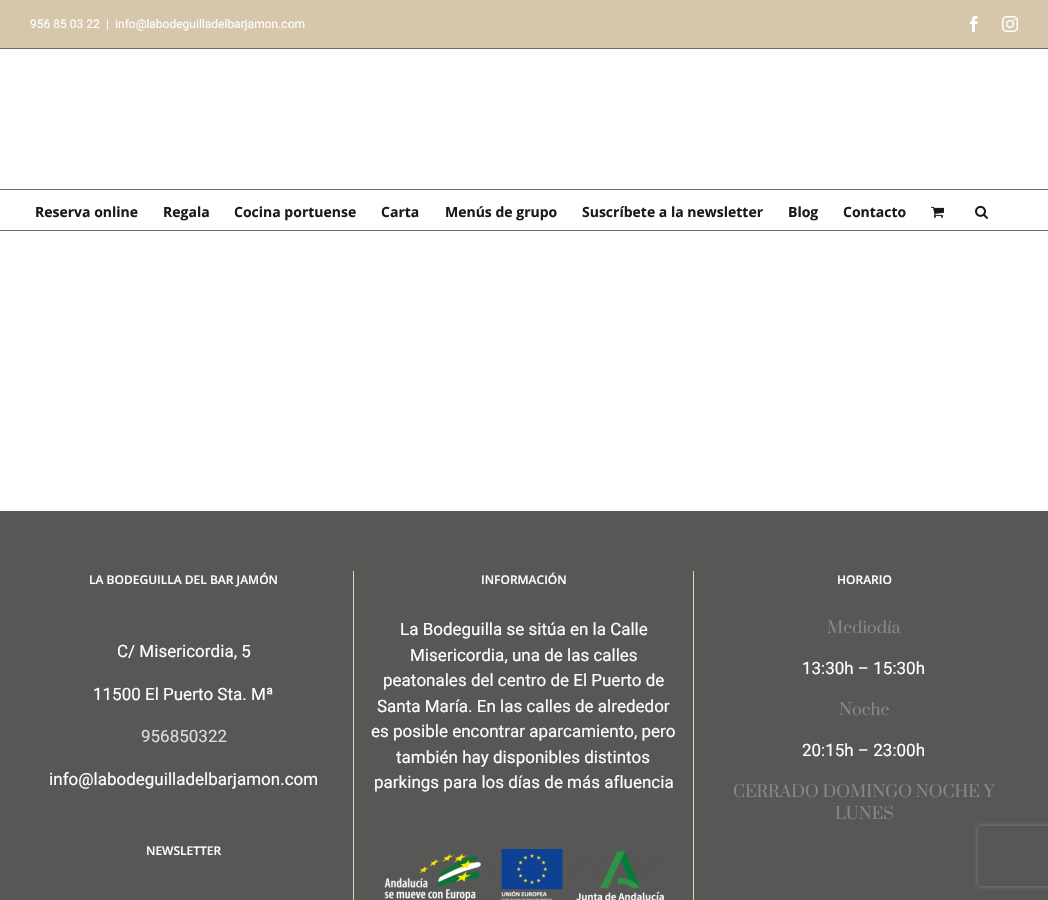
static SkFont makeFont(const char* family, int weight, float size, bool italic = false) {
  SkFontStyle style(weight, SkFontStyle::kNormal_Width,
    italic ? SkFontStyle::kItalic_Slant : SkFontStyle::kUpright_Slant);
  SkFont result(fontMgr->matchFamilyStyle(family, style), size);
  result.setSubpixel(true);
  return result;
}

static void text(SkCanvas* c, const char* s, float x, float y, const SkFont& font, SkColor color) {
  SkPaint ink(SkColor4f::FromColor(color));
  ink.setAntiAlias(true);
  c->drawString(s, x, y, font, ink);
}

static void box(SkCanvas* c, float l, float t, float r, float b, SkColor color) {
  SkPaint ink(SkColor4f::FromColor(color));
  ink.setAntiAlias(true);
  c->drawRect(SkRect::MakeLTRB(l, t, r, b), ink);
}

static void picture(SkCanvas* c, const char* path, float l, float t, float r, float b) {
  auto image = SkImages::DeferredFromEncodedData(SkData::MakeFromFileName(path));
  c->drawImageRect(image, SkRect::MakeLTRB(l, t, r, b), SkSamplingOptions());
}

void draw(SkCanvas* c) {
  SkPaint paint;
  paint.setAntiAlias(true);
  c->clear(0xffffffff);
  box(c, 0, 0, 1048, 48, 0xffd6c6ab);
  box(c, 0, 48, 1048, 49, 0xff6d6d6d);
  SkFont face1 = makeFont("Heebo", 400, 12);
  text(c, "956 85 03 22", 30, 28, face1, 0xffffffff);
  text(c, "|", 106, 28, face1, 0xffffffff);
  text(c, "info@labodeguilladelbarjamon.com", 115, 28, face1, 0xffffffff);
  picture(c, "img_01.png", 970, 16, 978, 32);
  picture(c, "img_02.png", 1002, 16, 1018, 32);
  box(c, 0, 189, 1048, 190, 0xff6d6d6d);
  box(c, 0, 230, 1048, 231, 0xff6d6d6d);
  SkFont face2 = makeFont("Open Sans", 700, 14);
  text(c, "Reserva online", 35, 217, face2, 0xff1a1a1a);
  text(c, "Regala", 163, 217, face2, 0xff1a1a1a);
  text(c, "Cocina portuense", 234, 217, face2, 0xff1a1a1a);
  text(c, "Carta", 381, 217, face2, 0xff1a1a1a);
  text(c, "Menús de grupo", 445, 217, face2, 0xff1a1a1a);
  text(c, "Suscríbete a la newsletter", 582, 217, face2, 0xff1a1a1a);
  text(c, "Blog", 788, 217, face2, 0xff1a1a1a);
  text(c, "Contacto", 843, 217, face2, 0xff1a1a1a);
  picture(c, "img_03.png", 931, 206, 944, 218);
  picture(c, "img_04.png", 975, 205, 988, 219);
  box(c, 0, 511, 1048, 900, 0xff575756);
  box(c, 353, 571, 354, 900, 0xffe2d4be);
  SkFont face3 = makeFont("Open Sans", 600, 12);
  text(c, "LA BODEGUILLA DEL BAR JAMÓN", 89, 584, face3, 0xffffffff);
  SkFont face4 = makeFont("Heebo", 400, 17);
  text(c, "C/ Misericordia, 5", 117, 657, face4, 0xffffffff);
  text(c, "11500 El Puerto Sta. Mª", 93, 700, face4, 0xffffffff);
  text(c, "956850322", 141, 742, face4, 0xffdddddd);
  text(c, "info@labodeguilladelbarjamon.com", 49, 785, face4, 0xffffffff);
  text(c, "NEWSLETTER", 146, 855, face3, 0xffffffff);
  box(c, 693, 571, 694, 900, 0xffe2d4be);
  text(c, "INFORMACIÓN", 481, 584, face3, 0xffffffff);
  text(c, "La Bodeguilla se sitúa en la Calle", 400, 635, face4, 0xffffffff);
  text(c, "Misericordia, una de las calles", 410, 661, face4, 0xffffffff);
  text(c, "peatonales del centro de El Puerto de", 383, 686, face4, 0xffffffff);
  text(c, "Santa María. En las calles de alrededor", 377, 712, face4, 0xffffffff);
  text(c, "es posible encontrar aparcamiento, pero", 371, 737, face4, 0xffffffff);
  text(c, "también hay disponibles distintos", 396, 763, face4, 0xffffffff);
  text(c, "parkings para los días de más afluencia", 374, 788, face4, 0xffffffff);
  picture(c, "img_05.png", 384, 849, 664, 900);
  text(c, "HORARIO", 837, 584, face3, 0xffffffff);
  SkFont face5 = makeFont("Prata", 400, 16);
  text(c, "Mediodía", 827, 633, face5, 0xff878787);
  text(c, "13:30h – 15:30h", 802, 674, face4, 0xffffffff);
  text(c, "Noche", 839, 715, face5, 0xff878787);
  text(c, "20:15h – 23:00h", 802, 756, face4, 0xffffffff);
  text(c, "CERRADO DOMINGO NOCHE Y", 733, 797, face5, 0xff878787);
  text(c, "LUNES", 835, 819, face5, 0xff878787);
  c->save();
  c->clipPath(SkPathBuilder(SkPathFillType::kEvenOdd).moveTo(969, 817).lineTo(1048, 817).lineTo(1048, 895).lineTo(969, 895).close().moveTo(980, 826).lineTo(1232, 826).cubicTo(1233, 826, 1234, 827, 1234, 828).lineTo(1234, 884).cubicTo(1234, 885, 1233, 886, 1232, 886).lineTo(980, 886).cubicTo(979, 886, 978, 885, 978, 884).lineTo(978, 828).cubicTo(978, 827, 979, 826, 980, 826).close().detach(), true);
  paint.setColor(0xff808080);
  paint.setMaskFilter(SkMaskFilter::MakeBlur(kNormal_SkBlurStyle, 2.5f));
  c->drawRoundRect(SkRect::MakeLTRB(978, 826, 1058, 886), 2, 2, paint);
  paint.setMaskFilter(nullptr);
  c->restore();
}
